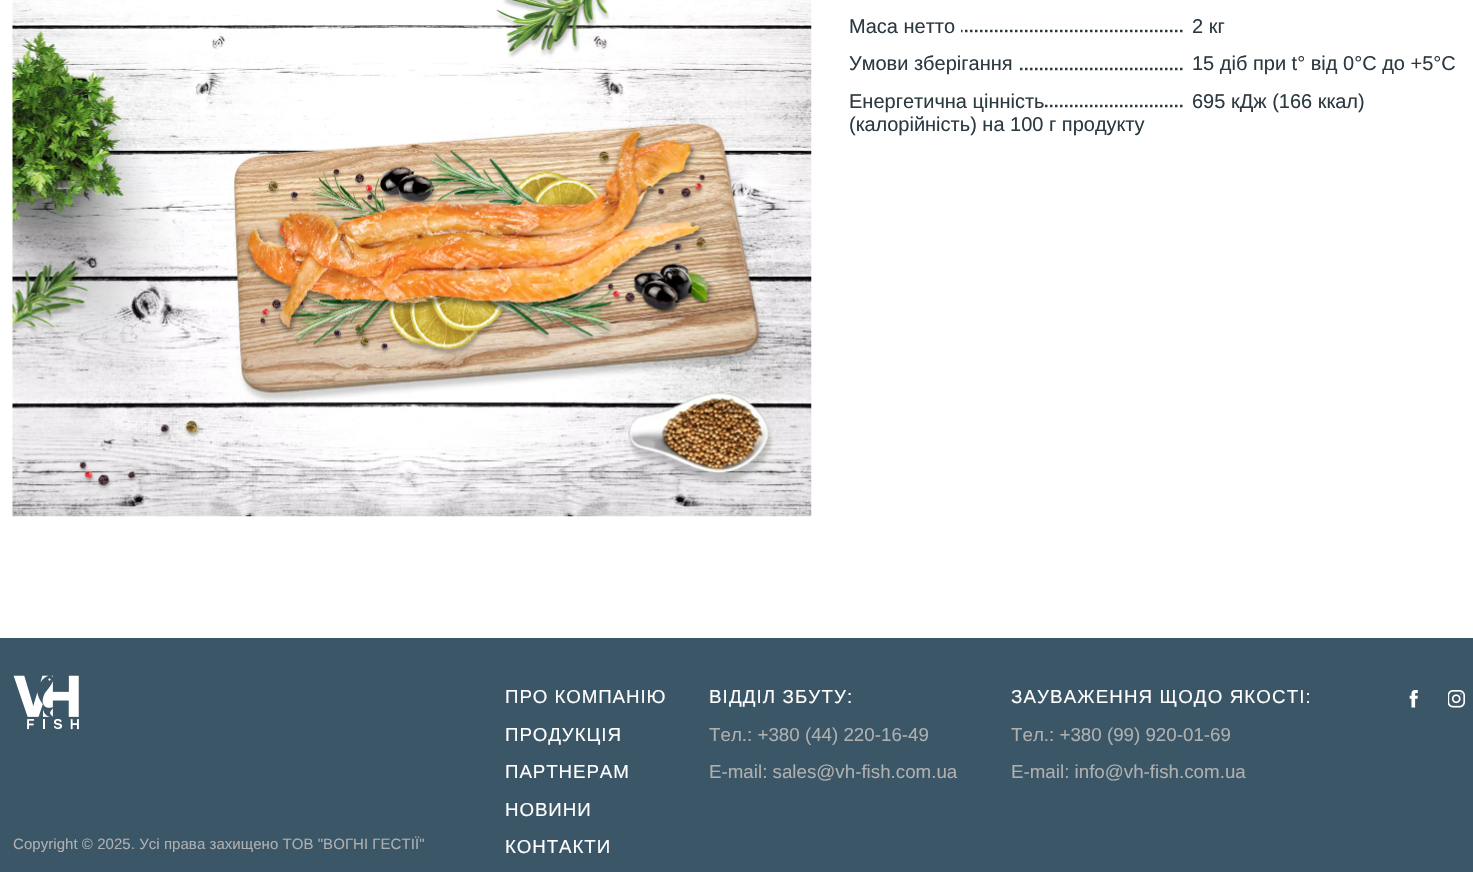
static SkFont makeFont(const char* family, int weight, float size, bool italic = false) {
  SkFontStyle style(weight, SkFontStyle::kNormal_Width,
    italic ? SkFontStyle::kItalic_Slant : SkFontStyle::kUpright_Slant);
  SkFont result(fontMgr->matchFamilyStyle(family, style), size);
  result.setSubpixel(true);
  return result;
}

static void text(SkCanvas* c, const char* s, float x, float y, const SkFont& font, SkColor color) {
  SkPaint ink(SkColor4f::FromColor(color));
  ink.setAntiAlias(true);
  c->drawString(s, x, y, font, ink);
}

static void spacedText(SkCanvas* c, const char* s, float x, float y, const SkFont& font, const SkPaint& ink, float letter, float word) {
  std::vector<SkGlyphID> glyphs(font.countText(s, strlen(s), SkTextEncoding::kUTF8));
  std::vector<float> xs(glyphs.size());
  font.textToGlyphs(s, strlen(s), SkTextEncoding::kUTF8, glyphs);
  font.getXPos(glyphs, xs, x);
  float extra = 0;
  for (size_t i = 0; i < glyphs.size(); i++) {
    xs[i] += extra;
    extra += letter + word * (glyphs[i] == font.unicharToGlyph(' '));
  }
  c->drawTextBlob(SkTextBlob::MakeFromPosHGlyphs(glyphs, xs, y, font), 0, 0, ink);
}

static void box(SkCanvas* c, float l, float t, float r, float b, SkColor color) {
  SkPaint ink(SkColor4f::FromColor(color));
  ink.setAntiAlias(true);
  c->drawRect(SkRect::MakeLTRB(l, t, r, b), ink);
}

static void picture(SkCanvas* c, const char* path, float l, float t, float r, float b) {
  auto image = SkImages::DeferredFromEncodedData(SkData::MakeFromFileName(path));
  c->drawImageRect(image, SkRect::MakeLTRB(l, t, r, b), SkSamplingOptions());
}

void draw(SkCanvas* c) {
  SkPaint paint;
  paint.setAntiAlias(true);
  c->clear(0xffffffff);
  picture(c, "img_01.png", 12, 0, 812, 517);
  paint.setStyle(SkPaint::kStroke_Style);
  paint.setStrokeWidth(2.5f);
  paint.setColor(0xff2c3941);
  paint.setPathEffect(SkDashPathEffect::Make({{2.5f, 2.5f}}, 0));
  c->drawPath(SkPathBuilder().moveTo(895, 31).lineTo(1185, 31).detach(), paint);
  paint.setPathEffect(nullptr);
  box(c, 895, 29, 961, 33, 0xffffffff);
  SkFont face1 = makeFont("Arimo", 400, 20);
  text(c, "Маса нетто", 849, 33, face1, 0xff2c3941);
  text(c, "2 кг", 1192, 33, face1, 0xff2c3941);
  paint.setPathEffect(SkDashPathEffect::Make({{2.5f, 2.5f}}, 0));
  c->drawPath(SkPathBuilder().moveTo(895, 69).lineTo(1185, 69).detach(), paint);
  paint.setPathEffect(nullptr);
  box(c, 895, 67, 1018, 71, 0xffffffff);
  text(c, "Умови зберігання", 849, 70, face1, 0xff2c3941);
  text(c, "15 діб при t° від 0°С до +5°С", 1192, 70, face1, 0xff2c3941);
  paint.setPathEffect(SkDashPathEffect::Make({{2.5f, 2.5f}}, 0));
  c->drawPath(SkPathBuilder().moveTo(895, 106).lineTo(1185, 106).detach(), paint);
  paint.setPathEffect(nullptr);
  box(c, 895, 104, 1043, 108, 0xffffffff);
  text(c, "Енергетична цінність", 849, 108, face1, 0xff2c3941);
  text(c, "(калорійність) на 100 г продукту", 849, 131, face1, 0xff2c3941);
  text(c, "695 кДж (166 ккал)", 1192, 108, face1, 0xff2c3941);
  box(c, 0, 638, 1473, 872, 0xff3b5667);
  picture(c, "img_02.png", 13, 675, 79, 730);
  SkFont face2 = makeFont("Arimo", 400, 15);
  paint.setStyle(SkPaint::kFill_Style);
  paint.setColor(0xffaeafaf);
  spacedText(c, "Copyright © 2025. Усі права захищено ТОВ \"ВОГНІ ГЕСТІЇ\"", 13, 849, face2, paint, 0.05f, 0);
  SkFont face3 = makeFont("Arimo", 400, 18.75f);
  paint.setColor(0xffffffff);
  spacedText(c, "ПРО КОМПАНІЮ", 505, 703, face3, paint, 0.9f, 0);
  spacedText(c, "ПРОДУКЦІЯ", 505, 741, face3, paint, 0.9f, 0);
  spacedText(c, "ПАРТНЕРАМ", 505, 778, face3, paint, 0.9f, 0);
  spacedText(c, "НОВИНИ", 505, 816, face3, paint, 0.9f, 0);
  spacedText(c, "КОНТАКТИ", 505, 853, face3, paint, 0.9f, 0);
  spacedText(c, "ВІДДІЛ ЗБУТУ:", 709, 703, face3, paint, 1.1f, 0);
  text(c, "Тел.: +380 (44) 220-16-49", 709, 741, face3, 0xffaeafaf);
  text(c, "E-mail: sales@vh-fish.com.ua", 709, 778, face3, 0xffaeafaf);
  spacedText(c, "ЗАУВАЖЕННЯ ЩОДО ЯКОСТІ:", 1011, 703, face3, paint, 1.1f, 0);
  text(c, "Тел.: +380 (99) 920-01-69", 1011, 741, face3, 0xffaeafaf);
  text(c, "E-mail: info@vh-fish.com.ua", 1011, 778, face3, 0xffaeafaf);
  picture(c, "img_03.png", 1409, 690, 1418, 708);
  picture(c, "img_04.png", 1448, 690, 1465, 708);
}
